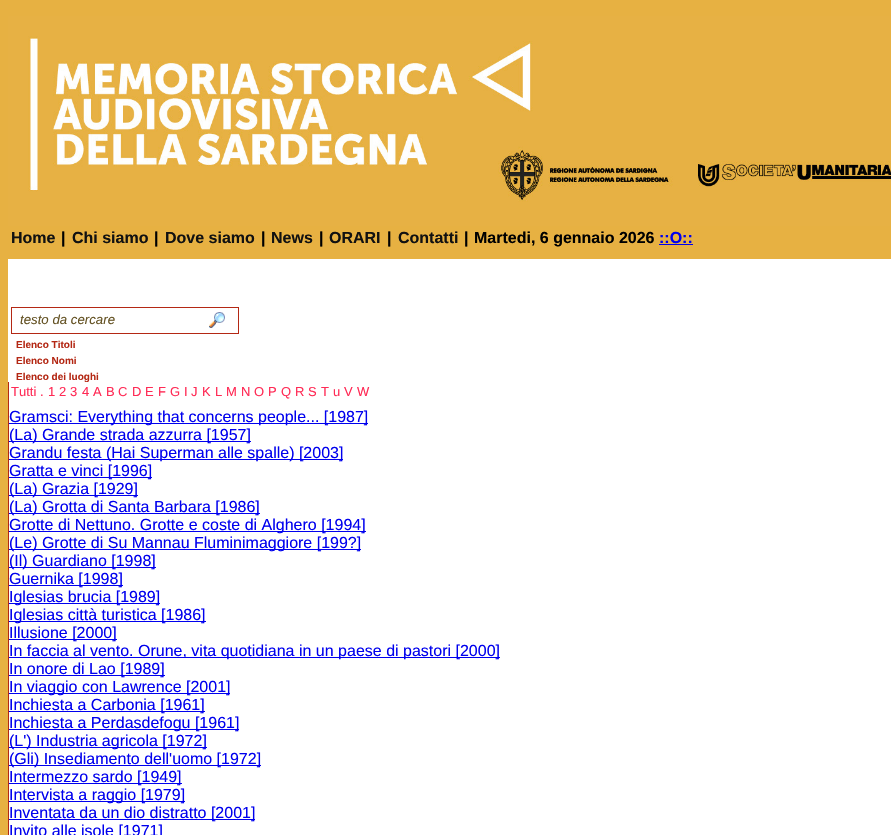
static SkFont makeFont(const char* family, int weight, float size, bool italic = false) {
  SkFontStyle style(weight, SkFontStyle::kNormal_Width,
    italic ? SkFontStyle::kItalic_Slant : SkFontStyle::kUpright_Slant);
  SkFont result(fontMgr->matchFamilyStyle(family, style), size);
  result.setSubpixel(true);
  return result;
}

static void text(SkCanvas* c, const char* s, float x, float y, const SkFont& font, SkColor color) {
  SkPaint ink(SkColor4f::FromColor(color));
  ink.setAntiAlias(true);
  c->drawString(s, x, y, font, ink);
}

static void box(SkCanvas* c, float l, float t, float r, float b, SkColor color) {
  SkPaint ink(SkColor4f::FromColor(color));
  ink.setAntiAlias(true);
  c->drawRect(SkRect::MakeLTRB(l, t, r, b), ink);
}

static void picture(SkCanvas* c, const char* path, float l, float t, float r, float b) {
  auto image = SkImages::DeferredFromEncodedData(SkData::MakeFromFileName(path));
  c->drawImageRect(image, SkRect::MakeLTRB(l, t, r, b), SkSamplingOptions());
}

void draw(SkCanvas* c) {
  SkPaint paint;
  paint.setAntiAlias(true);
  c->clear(0xffe7b142);
  picture(c, "img_01.png", 8, 16, 891, 226);
  SkFont face1 = makeFont("Liberation Sans", 700, 16);
  text(c, "Home", 11, 243, face1, 0xff111111);
  text(c, "|", 61, 243, face1, 0xff000000);
  text(c, "Chi siamo", 72, 243, face1, 0xff111111);
  text(c, "|", 154, 243, face1, 0xff000000);
  text(c, "Dove siamo", 165, 243, face1, 0xff111111);
  text(c, "|", 261, 243, face1, 0xff000000);
  text(c, "News", 271, 243, face1, 0xff111111);
  text(c, "|", 319, 243, face1, 0xff000000);
  text(c, "ORARI", 329, 243, face1, 0xff111111);
  text(c, "|", 387, 243, face1, 0xff000000);
  text(c, "Contatti", 398, 243, face1, 0xff111111);
  text(c, "|", 464, 243, face1, 0xff000000);
  text(c, "Martedi, 6 gennaio 2026", 474, 243, face1, 0xff000000);
  text(c, "::O::", 659, 243, face1, 0xff0000ee);
  box(c, 659, 244, 693, 245, 0xff0000ee);
  box(c, 8, 259, 891, 382, 0xffffffff);
  picture(c, "img_02.png", 209, 312, 225, 328);
  paint.setStyle(SkPaint::kStroke_Style);
  paint.setStrokeWidth(1);
  paint.setColor(0xffb42814);
  c->drawRect(SkRect::MakeLTRB(11.5f, 307.5f, 238.5f, 333.5f), paint);
  SkFont face2 = makeFont("Liberation Sans", 400, 13.25f, true);
  text(c, "testo da cercare", 20, 324, face2, 0xff635122);
  SkFont face3 = makeFont("Liberation Sans", 700, 10);
  text(c, "Elenco Titoli", 16, 348, face3, 0xffb42814);
  text(c, "Elenco Nomi", 16, 364, face3, 0xffb42814);
  text(c, "Elenco dei luoghi", 16, 380, face3, 0xffb42814);
  box(c, 9, 382, 891, 835, 0xffffffff);
  box(c, 8, 382, 9, 835, 0xffb42814);
  SkFont face4 = makeFont("Liberation Sans", 400, 13);
  text(c, "Tutti", 11, 396, face4, 0xffff2a55);
  text(c, ".", 40, 396, face4, 0xffff2a55);
  text(c, "1", 48, 396, face4, 0xffff2a55);
  text(c, "2", 59, 396, face4, 0xffff2a55);
  text(c, "3", 70, 396, face4, 0xffff2a55);
  text(c, "4", 82, 396, face4, 0xffff2a55);
  text(c, "A", 93, 396, face4, 0xffff2a55);
  text(c, "B", 106, 396, face4, 0xffff2a55);
  text(c, "C", 118, 396, face4, 0xffff2a55);
  text(c, "D", 132, 396, face4, 0xffff2a55);
  text(c, "E", 145, 396, face4, 0xffff2a55);
  text(c, "F", 158, 396, face4, 0xffff2a55);
  text(c, "G", 170, 396, face4, 0xffff2a55);
  text(c, "I", 184, 396, face4, 0xffff2a55);
  text(c, "J", 191, 396, face4, 0xffff2a55);
  text(c, "K", 202, 396, face4, 0xffff2a55);
  text(c, "L", 215, 396, face4, 0xffff2a55);
  text(c, "M", 226, 396, face4, 0xffff2a55);
  text(c, "N", 241, 396, face4, 0xffff2a55);
  text(c, "O", 254, 396, face4, 0xffff2a55);
  text(c, "P", 268, 396, face4, 0xffff2a55);
  text(c, "Q", 281, 396, face4, 0xffff2a55);
  text(c, "R", 295, 396, face4, 0xffff2a55);
  text(c, "S", 308, 396, face4, 0xffff2a55);
  text(c, "T", 321, 396, face4, 0xffff2a55);
  text(c, "u", 333, 396, face4, 0xffff2a55);
  text(c, "V", 344, 396, face4, 0xffff2a55);
  text(c, "W", 357, 396, face4, 0xffff2a55);
  box(c, 9, 423, 368, 424, 0xff0000ee);
  SkFont face5 = makeFont("Liberation Sans", 400, 16);
  text(c, "Gramsci: Everything that concerns people... [1987]", 9, 422, face5, 0xff0000ee);
  box(c, 9, 441, 251, 442, 0xff0000ee);
  text(c, "(La) Grande strada azzurra [1957]", 9, 440, face5, 0xff0000ee);
  box(c, 9, 459, 343, 460, 0xff0000ee);
  text(c, "Grandu festa (Hai Superman alle spalle) [2003]", 9, 458, face5, 0xff0000ee);
  box(c, 9, 477, 152, 478, 0xff0000ee);
  text(c, "Gratta e vinci [1996]", 9, 476, face5, 0xff0000ee);
  box(c, 9, 495, 138, 496, 0xff0000ee);
  text(c, "(La) Grazia [1929]", 9, 494, face5, 0xff0000ee);
  box(c, 9, 513, 260, 514, 0xff0000ee);
  text(c, "(La) Grotta di Santa Barbara [1986]", 9, 512, face5, 0xff0000ee);
  box(c, 9, 531, 366, 532, 0xff0000ee);
  text(c, "Grotte di Nettuno. Grotte e coste di Alghero [1994]", 9, 530, face5, 0xff0000ee);
  box(c, 9, 549, 361, 550, 0xff0000ee);
  text(c, "(Le) Grotte di Su Mannau Fluminimaggiore [199?]", 9, 548, face5, 0xff0000ee);
  box(c, 9, 567, 156, 568, 0xff0000ee);
  text(c, "(Il) Guardiano [1998]", 9, 566, face5, 0xff0000ee);
  box(c, 9, 585, 123, 586, 0xff0000ee);
  text(c, "Guernika [1998]", 9, 584, face5, 0xff0000ee);
  box(c, 9, 603, 160, 604, 0xff0000ee);
  text(c, "Iglesias brucia [1989]", 9, 602, face5, 0xff0000ee);
  box(c, 9, 621, 206, 622, 0xff0000ee);
  text(c, "Iglesias città turistica [1986]", 9, 620, face5, 0xff0000ee);
  box(c, 9, 639, 117, 640, 0xff0000ee);
  text(c, "Illusione [2000]", 9, 638, face5, 0xff0000ee);
  box(c, 9, 657, 500, 658, 0xff0000ee);
  text(c, "In faccia al vento. Orune, vita quotidiana in un paese di pastori [2000]", 9, 656, face5, 0xff0000ee);
  box(c, 9, 675, 165, 676, 0xff0000ee);
  text(c, "In onore di Lao [1989]", 9, 674, face5, 0xff0000ee);
  box(c, 9, 693, 230, 694, 0xff0000ee);
  text(c, "In viaggio con Lawrence [2001]", 9, 692, face5, 0xff0000ee);
  box(c, 9, 711, 205, 712, 0xff0000ee);
  text(c, "Inchiesta a Carbonia [1961]", 9, 710, face5, 0xff0000ee);
  box(c, 9, 729, 239, 730, 0xff0000ee);
  text(c, "Inchiesta a Perdasdefogu [1961]", 9, 728, face5, 0xff0000ee);
  box(c, 9, 747, 207, 748, 0xff0000ee);
  text(c, "(L') Industria agricola [1972]", 9, 746, face5, 0xff0000ee);
  box(c, 9, 765, 261, 766, 0xff0000ee);
  text(c, "(Gli) Insediamento dell'uomo [1972]", 9, 764, face5, 0xff0000ee);
  box(c, 9, 783, 182, 784, 0xff0000ee);
  text(c, "Intermezzo sardo [1949]", 9, 782, face5, 0xff0000ee);
  box(c, 9, 801, 185, 802, 0xff0000ee);
  text(c, "Intervista a raggio [1979]", 9, 800, face5, 0xff0000ee);
  box(c, 9, 819, 255, 820, 0xff0000ee);
  text(c, "Inventata da un dio distratto [2001]", 9, 818, face5, 0xff0000ee);
  text(c, "Invito alle isole [1971]", 9, 836, face5, 0xff0000ee);
}
